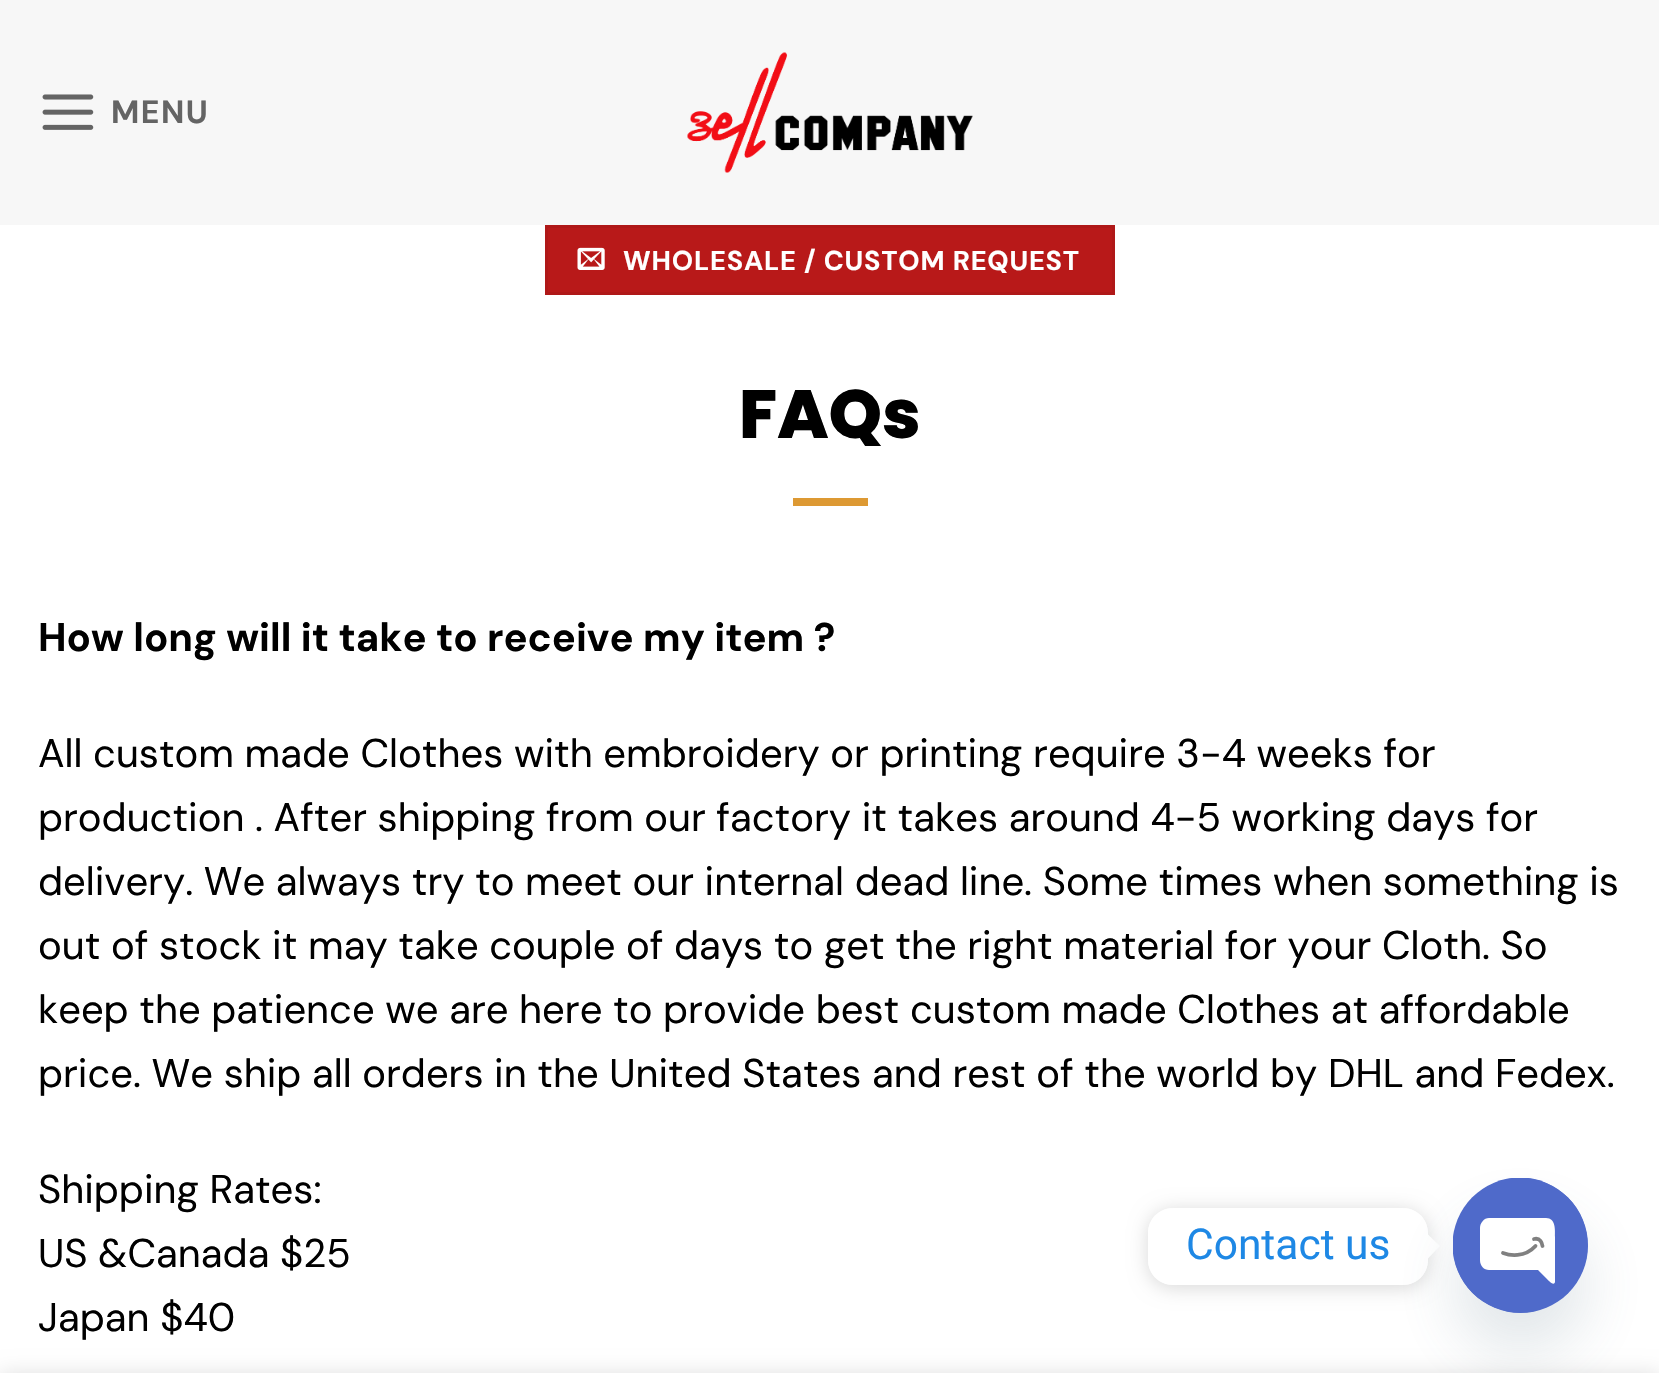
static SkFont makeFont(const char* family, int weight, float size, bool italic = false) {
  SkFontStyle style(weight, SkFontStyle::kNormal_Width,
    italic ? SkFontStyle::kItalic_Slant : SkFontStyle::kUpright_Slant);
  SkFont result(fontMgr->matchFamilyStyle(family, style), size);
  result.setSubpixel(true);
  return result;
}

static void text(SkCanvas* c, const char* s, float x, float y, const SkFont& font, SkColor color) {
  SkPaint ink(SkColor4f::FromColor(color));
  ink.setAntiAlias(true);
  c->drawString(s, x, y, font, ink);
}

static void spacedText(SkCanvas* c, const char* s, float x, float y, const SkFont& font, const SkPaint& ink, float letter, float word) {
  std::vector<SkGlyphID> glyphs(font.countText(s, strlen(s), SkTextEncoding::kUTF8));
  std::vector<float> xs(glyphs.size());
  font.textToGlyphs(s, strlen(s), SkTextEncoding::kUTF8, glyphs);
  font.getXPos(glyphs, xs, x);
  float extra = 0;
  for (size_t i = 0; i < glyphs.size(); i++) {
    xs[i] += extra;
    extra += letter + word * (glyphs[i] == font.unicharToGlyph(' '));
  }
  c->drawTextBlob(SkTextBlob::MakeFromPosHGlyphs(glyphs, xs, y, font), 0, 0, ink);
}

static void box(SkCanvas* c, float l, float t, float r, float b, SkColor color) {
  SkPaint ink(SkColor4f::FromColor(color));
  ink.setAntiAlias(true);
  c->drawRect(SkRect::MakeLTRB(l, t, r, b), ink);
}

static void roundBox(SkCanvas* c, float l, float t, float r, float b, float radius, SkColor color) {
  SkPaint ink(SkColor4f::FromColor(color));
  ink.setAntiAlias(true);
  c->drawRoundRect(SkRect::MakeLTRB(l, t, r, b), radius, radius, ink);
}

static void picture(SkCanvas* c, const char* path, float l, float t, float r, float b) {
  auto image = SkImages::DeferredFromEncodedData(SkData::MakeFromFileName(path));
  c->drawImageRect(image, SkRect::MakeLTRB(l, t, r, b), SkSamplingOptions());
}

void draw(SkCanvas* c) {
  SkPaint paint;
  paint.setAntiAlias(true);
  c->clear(0xffffffff);
  box(c, 0, 0, 1659, 225, 0xfff7f7f7);
  picture(c, "img_01.png", 42, 94, 94, 130);
  SkFont face1 = makeFont("DM Sans", 700, 32);
  paint.setColor(0xff646464);
  spacedText(c, "MENU", 111, 123, face1, paint, 1.5f, 0);
  picture(c, "img_02.png", 687, 52, 973, 173);
  paint.setColor(0xffb81919);
  c->drawRect(SkRect::MakeLTRB(546.5f, 226.5f, 1113.5f, 293.5f), paint);
  paint.setStyle(SkPaint::kStroke_Style);
  paint.setStrokeWidth(3);
  paint.setColor(0xffaf1818);
  c->drawRect(SkRect::MakeLTRB(546.5f, 226.5f, 1113.5f, 293.5f), paint);
  picture(c, "img_03.png", 577, 247, 605, 270);
  SkFont face2 = makeFont("DM Sans", 700, 27.25f);
  paint.setStyle(SkPaint::kFill_Style);
  paint.setColor(0xffffffff);
  spacedText(c, "WHOLESALE / CUSTOM REQUEST", 623, 270, face2, paint, 0.8f, 0);
  SkFont face3 = makeFont("Poppins", 800, 68);
  text(c, "FAQs", 739, 438, face3, 0xff000000);
  box(c, 793, 498, 868, 506, 0xffdd9933);
  SkFont face4 = makeFont("DM Sans", 700, 40);
  text(c, "How long will it take to receive my item ?", 38, 651, face4, 0xff000000);
  SkFont face5 = makeFont("DM Sans", 400, 40);
  text(c, "All custom made Clothes with embroidery or printing require 3-4 weeks for", 38, 767, face5, 0xff000000);
  text(c, "production . After shipping from our factory it takes around 4-5 working days for", 38, 831, face5, 0xff000000);
  text(c, "delivery. We always try to meet our internal dead line. Some times when something is", 38, 895, face5, 0xff000000);
  text(c, "out of stock it may take couple of days to get the right material for your Cloth. So", 38, 959, face5, 0xff000000);
  text(c, "keep the patience we are here to provide best custom made Clothes at affordable", 38, 1023, face5, 0xff000000);
  text(c, "price. We ship all orders in the United States and rest of the world by DHL and Fedex.", 38, 1087, face5, 0xff000000);
  text(c, "Shipping Rates:", 38, 1203, face5, 0xff000000);
  text(c, "US &Canada $25", 38, 1267, face5, 0xff000000);
  text(c, "Japan $40", 38, 1331, face5, 0xff000000);
  c->save();
  c->clipPath(SkPathBuilder(SkPathFillType::kEvenOdd).moveTo(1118, 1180).lineTo(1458, 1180).lineTo(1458, 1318).lineTo(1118, 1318).close().moveTo(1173, 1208).lineTo(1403, 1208).cubicTo(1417, 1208, 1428, 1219, 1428, 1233).lineTo(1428, 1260).cubicTo(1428, 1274, 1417, 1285, 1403, 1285).lineTo(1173, 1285).cubicTo(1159, 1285, 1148, 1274, 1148, 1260).lineTo(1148, 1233).cubicTo(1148, 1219, 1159, 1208, 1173, 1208).close().detach(), true);
  paint.setColor(0x26000000);
  paint.setMaskFilter(SkMaskFilter::MakeBlur(kNormal_SkBlurStyle, 9.5f));
  c->drawRoundRect(SkRect::MakeLTRB(1148, 1210, 1428, 1288), 25, 25, paint);
  paint.setMaskFilter(nullptr);
  c->restore();
  roundBox(c, 1148, 1208, 1428, 1285, 25, 0xffffffff);
  SkFont face6 = makeFont("Roboto", 400, 42.5f);
  text(c, "Contact us", 1186, 1259, face6, 0xff1e88e5);
  paint.setColor(0xffffffff);
  c->drawPath(SkPathBuilder().moveTo(1427.5f, 1259).lineTo(1427.5f, 1234).lineTo(1440, 1246).close().detach(), paint);
  paint.setColor(0x2949687e);
  paint.setMaskFilter(SkMaskFilter::MakeBlur(kNormal_SkBlurStyle, 30));
  c->drawRoundRect(SkRect::MakeLTRB(1453, 1218, 1588, 1353), 67.5f, 67.5f, paint);
  paint.setMaskFilter(nullptr);
  paint.setColor(0xff4f6aca);
  c->drawCircle(1520.5f, 1245.5f, 67.5f, paint);
  c->save();
  c->clipRect(SkRect::MakeLTRB(1453, 1178, 1588, 1313));
  c->drawCircle(1520, 1245, 67.5f, paint);
  c->restore();
  paint.setColor(0xffffffff);
  c->drawPath(SkPathBuilder().moveTo(1546, 1218).lineTo(1489, 1218).cubicTo(1484, 1218, 1480, 1223, 1480, 1228).lineTo(1480, 1260).cubicTo(1480, 1266, 1484, 1270, 1489, 1270).lineTo(1538, 1270).lineTo(1547, 1279).cubicTo(1547, 1279, 1554, 1287, 1555, 1282).lineTo(1555, 1237).cubicTo(1555, 1230, 1556, 1218, 1546, 1218).close().detach(), paint);
  paint.setStyle(SkPaint::kStroke_Style);
  paint.setStrokeWidth(3.8f);
  paint.setStrokeCap(SkPaint::kRound_Cap);
  paint.setStrokeJoin(SkPaint::kRound_Join);
  paint.setColor(0xff808080);
  c->drawPath(SkPathBuilder().moveTo(1503, 1253).cubicTo(1509.5f, 1255.5f, 1524.5f, 1258, 1535.5f, 1246).moveTo(1542.5f, 1246).cubicTo(1542, 1243, 1540.5f, 1237.5f, 1534, 1239).detach(), paint);
  paint.setStyle(SkPaint::kFill_Style);
  paint.setColor(0x24000000);
  paint.setMaskFilter(SkMaskFilter::MakeBlur(kNormal_SkBlurStyle, 11));
  c->drawRect(SkRect::MakeLTRB(0, 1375, 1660, 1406), paint);
  paint.setMaskFilter(nullptr);
}
